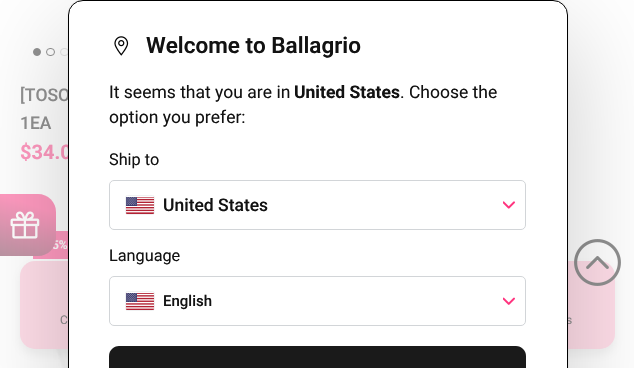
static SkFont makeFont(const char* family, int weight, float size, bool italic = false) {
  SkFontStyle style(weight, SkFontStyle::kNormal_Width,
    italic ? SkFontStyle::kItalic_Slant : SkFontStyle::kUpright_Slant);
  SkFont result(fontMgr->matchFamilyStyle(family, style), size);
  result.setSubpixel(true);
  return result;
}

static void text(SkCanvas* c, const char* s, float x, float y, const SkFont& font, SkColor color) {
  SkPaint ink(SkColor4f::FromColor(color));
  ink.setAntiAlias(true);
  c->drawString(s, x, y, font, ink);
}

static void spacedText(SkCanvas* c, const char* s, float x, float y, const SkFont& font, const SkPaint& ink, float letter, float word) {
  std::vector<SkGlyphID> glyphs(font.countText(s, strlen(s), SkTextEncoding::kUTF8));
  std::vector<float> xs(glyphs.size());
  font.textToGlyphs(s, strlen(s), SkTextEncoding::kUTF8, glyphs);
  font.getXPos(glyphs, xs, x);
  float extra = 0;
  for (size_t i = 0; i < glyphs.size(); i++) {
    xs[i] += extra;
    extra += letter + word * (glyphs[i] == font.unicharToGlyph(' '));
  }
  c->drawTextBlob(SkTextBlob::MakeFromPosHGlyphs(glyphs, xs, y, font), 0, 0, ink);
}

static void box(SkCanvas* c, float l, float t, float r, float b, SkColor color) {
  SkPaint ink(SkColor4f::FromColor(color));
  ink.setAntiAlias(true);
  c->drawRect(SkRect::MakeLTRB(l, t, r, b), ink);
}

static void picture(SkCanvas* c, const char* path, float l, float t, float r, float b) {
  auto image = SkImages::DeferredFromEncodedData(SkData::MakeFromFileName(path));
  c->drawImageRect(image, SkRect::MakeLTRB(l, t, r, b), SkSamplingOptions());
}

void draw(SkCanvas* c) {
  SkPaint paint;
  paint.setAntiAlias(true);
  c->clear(0xffffffff);
  paint.setColor(0xff919191);
  c->drawCircle(37, 52, 3.5f, paint);
  paint.setStyle(SkPaint::kStroke_Style);
  paint.setStrokeWidth(1);
  c->drawCircle(37, 52, 3.5f, paint);
  c->drawRoundRect(SkRect::MakeLTRB(46.5f, 48.5f, 54.5f, 55.5f), 3.5f, 3.5f, paint);
  paint.setColor(0xffe4e4e4);
  c->drawRoundRect(SkRect::MakeLTRB(60.5f, 48.5f, 68.5f, 55.5f), 3.5f, 3.5f, paint);
  SkFont face1 = makeFont("Roboto", 500, 17.5f);
  text(c, "[TOSO", 20, 101, face1, 0xff919191);
  text(c, "1EA", 20, 129, face1, 0xff919191);
  SkFont face2 = makeFont("Roboto", 700, 20);
  text(c, "$34.0", 20, 159, face2, 0xffff99bf);
  picture(c, "img_01.png", 53, 219, 68, 368);
  box(c, 33, 231, 68, 259, 0xffff99bf);
  SkFont face3 = makeFont("Roboto", 600, 12);
  text(c, "5%", 52, 249, face3, 0xffffffff);
  paint.setStyle(SkPaint::kFill_Style);
  paint.setColor(0x1a808080);
  paint.setMaskFilter(SkMaskFilter::MakeBlur(kNormal_SkBlurStyle, 5));
  c->drawRoundRect(SkRect::MakeLTRB(20, 266, 615, 354), 15, 15, paint);
  paint.setMaskFilter(nullptr);
  {
    const SkColor colors[] = {0xffff99bf, 0xff919191};
    const float stops[] = {0.17f, 1};
    const SkPoint ends[] = {{38, 187}, {0.9f, 293}};
    paint.setShader(SkGradientShader::MakeLinear(ends, colors, stops, 2, SkTileMode::kClamp));
    paint.setAlpha(255);
  }
  c->drawPath(SkPathBuilder().moveTo(56, 212).lineTo(56, 238).cubicTo(56, 248, 48, 256, 38, 256).lineTo(-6, 256).lineTo(-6, 194).lineTo(38, 194).cubicTo(48, 194, 56, 202, 56, 212).close().detach(), paint);
  picture(c, "img_07.png", 10, 211, 40, 239);
  {
    const SkColor colors[] = {0x00ffdde8, 0xffffdde8};
    const float stops[] = {0.15f, 0.15f};
    paint.setShader(SkGradientShader::MakeRadial({318, 261}, 310, colors, stops, 2, SkTileMode::kClamp));
    paint.setAlpha(255);
  }
  c->drawRoundRect(SkRect::MakeLTRB(20, 261, 615, 349), 15, 15, paint);
  picture(c, "img_08.png", 574, 239, 621, 286);
  paint.setShader(nullptr);
  paint.setColor(0x33000000);
  paint.setMaskFilter(SkMaskFilter::MakeBlur(kNormal_SkBlurStyle, 50));
  c->drawRoundRect(SkRect::MakeLTRB(68, 33, 568, 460), 15, 15, paint);
  paint.setMaskFilter(nullptr);
  paint.setMaskFilter(SkMaskFilter::MakeBlur(kNormal_SkBlurStyle, 0.5f));
  c->drawRoundRect(SkRect::MakeLTRB(68, 0, 568, 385), 15, 15, paint);
  paint.setMaskFilter(nullptr);
  SkFont face4 = makeFont("Roboto", 400, 12);
  paint.setColor(0xff808080);
  spacedText(c, "s", 566, 324, face4, paint, 1, 0);
  paint.setColor(0xffffffff);
  c->drawPath(SkPathBuilder().moveTo(83, 0).lineTo(553, 0).cubicTo(561.5f, 0, 568, 6.5f, 568, 15).lineTo(568, 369).lineTo(68, 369).lineTo(68, 15).cubicTo(68, 6.5f, 74.5f, 0, 83, 0).close().detach(), paint);
  paint.setStyle(SkPaint::kStroke_Style);
  paint.setColor(0xff000000);
  c->drawRoundRect(SkRect::MakeLTRB(68.5f, 0.5f, 567.5f, 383.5f), 14.5f, 14.5f, paint);
  picture(c, "img_02.png", 114, 36, 129, 56);
  SkFont face5 = makeFont("Roboto", 600, 22.5f);
  text(c, "Welcome to Ballagrio", 146, 53, face5, 0xff121212);
  SkFont face6 = makeFont("Roboto", 400, 17.5f);
  text(c, "It seems that you are in", 109, 98, face6, 0xff121212);
  SkFont face7 = makeFont("Roboto", 700, 17.5f);
  text(c, "United States", 294, 98, face7, 0xff121212);
  text(c, ". Choose the", 400, 98, face6, 0xff121212);
  text(c, "option you prefer:", 109, 123, face6, 0xff121212);
  SkFont face8 = makeFont("Roboto", 400, 16.25f);
  text(c, "Ship to", 109, 165, face8, 0xff121212);
  paint.setColor(0xffd2d5d8);
  c->drawRoundRect(SkRect::MakeLTRB(109.5f, 180.5f, 525.5f, 229.5f), 4.5f, 4.5f, paint);
  paint.setColor(0xfff0f1f2);
  c->drawRoundRect(SkRect::MakeLTRB(125.5f, 195.5f, 154.5f, 214.5f), 2, 2, paint);
  picture(c, "img_03.png", 126, 197, 154, 214);
  text(c, "United States", 163, 211, face1, 0xff121212);
  picture(c, "img_04.png", 503, 201, 515, 209);
  text(c, "Language", 109, 261, face8, 0xff121212);
  paint.setColor(0xffd2d5d8);
  c->drawRoundRect(SkRect::MakeLTRB(109.5f, 276.5f, 525.5f, 325.5f), 4.5f, 4.5f, paint);
  paint.setColor(0xfff0f1f2);
  c->drawRoundRect(SkRect::MakeLTRB(125.5f, 291.5f, 154.5f, 310.5f), 2, 2, paint);
  picture(c, "img_05.png", 126, 293, 154, 310);
  SkFont face9 = makeFont("Roboto", 500, 15);
  text(c, "English", 163, 306, face9, 0xff121212);
  picture(c, "img_06.png", 503, 297, 515, 305);
  paint.setStyle(SkPaint::kFill_Style);
  paint.setColor(0xff1a1a1a);
  c->drawPath(SkPathBuilder().moveTo(119, 346).lineTo(516, 346).cubicTo(521.5f, 346, 526, 350.5f, 526, 356).lineTo(526, 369).lineTo(109, 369).lineTo(109, 356).cubicTo(109, 350.5f, 113.5f, 346, 119, 346).close().detach(), paint);
  paint.setColor(0xff808080);
  spacedText(c, "C", 60, 324, face4, paint, 1, 0);
}
